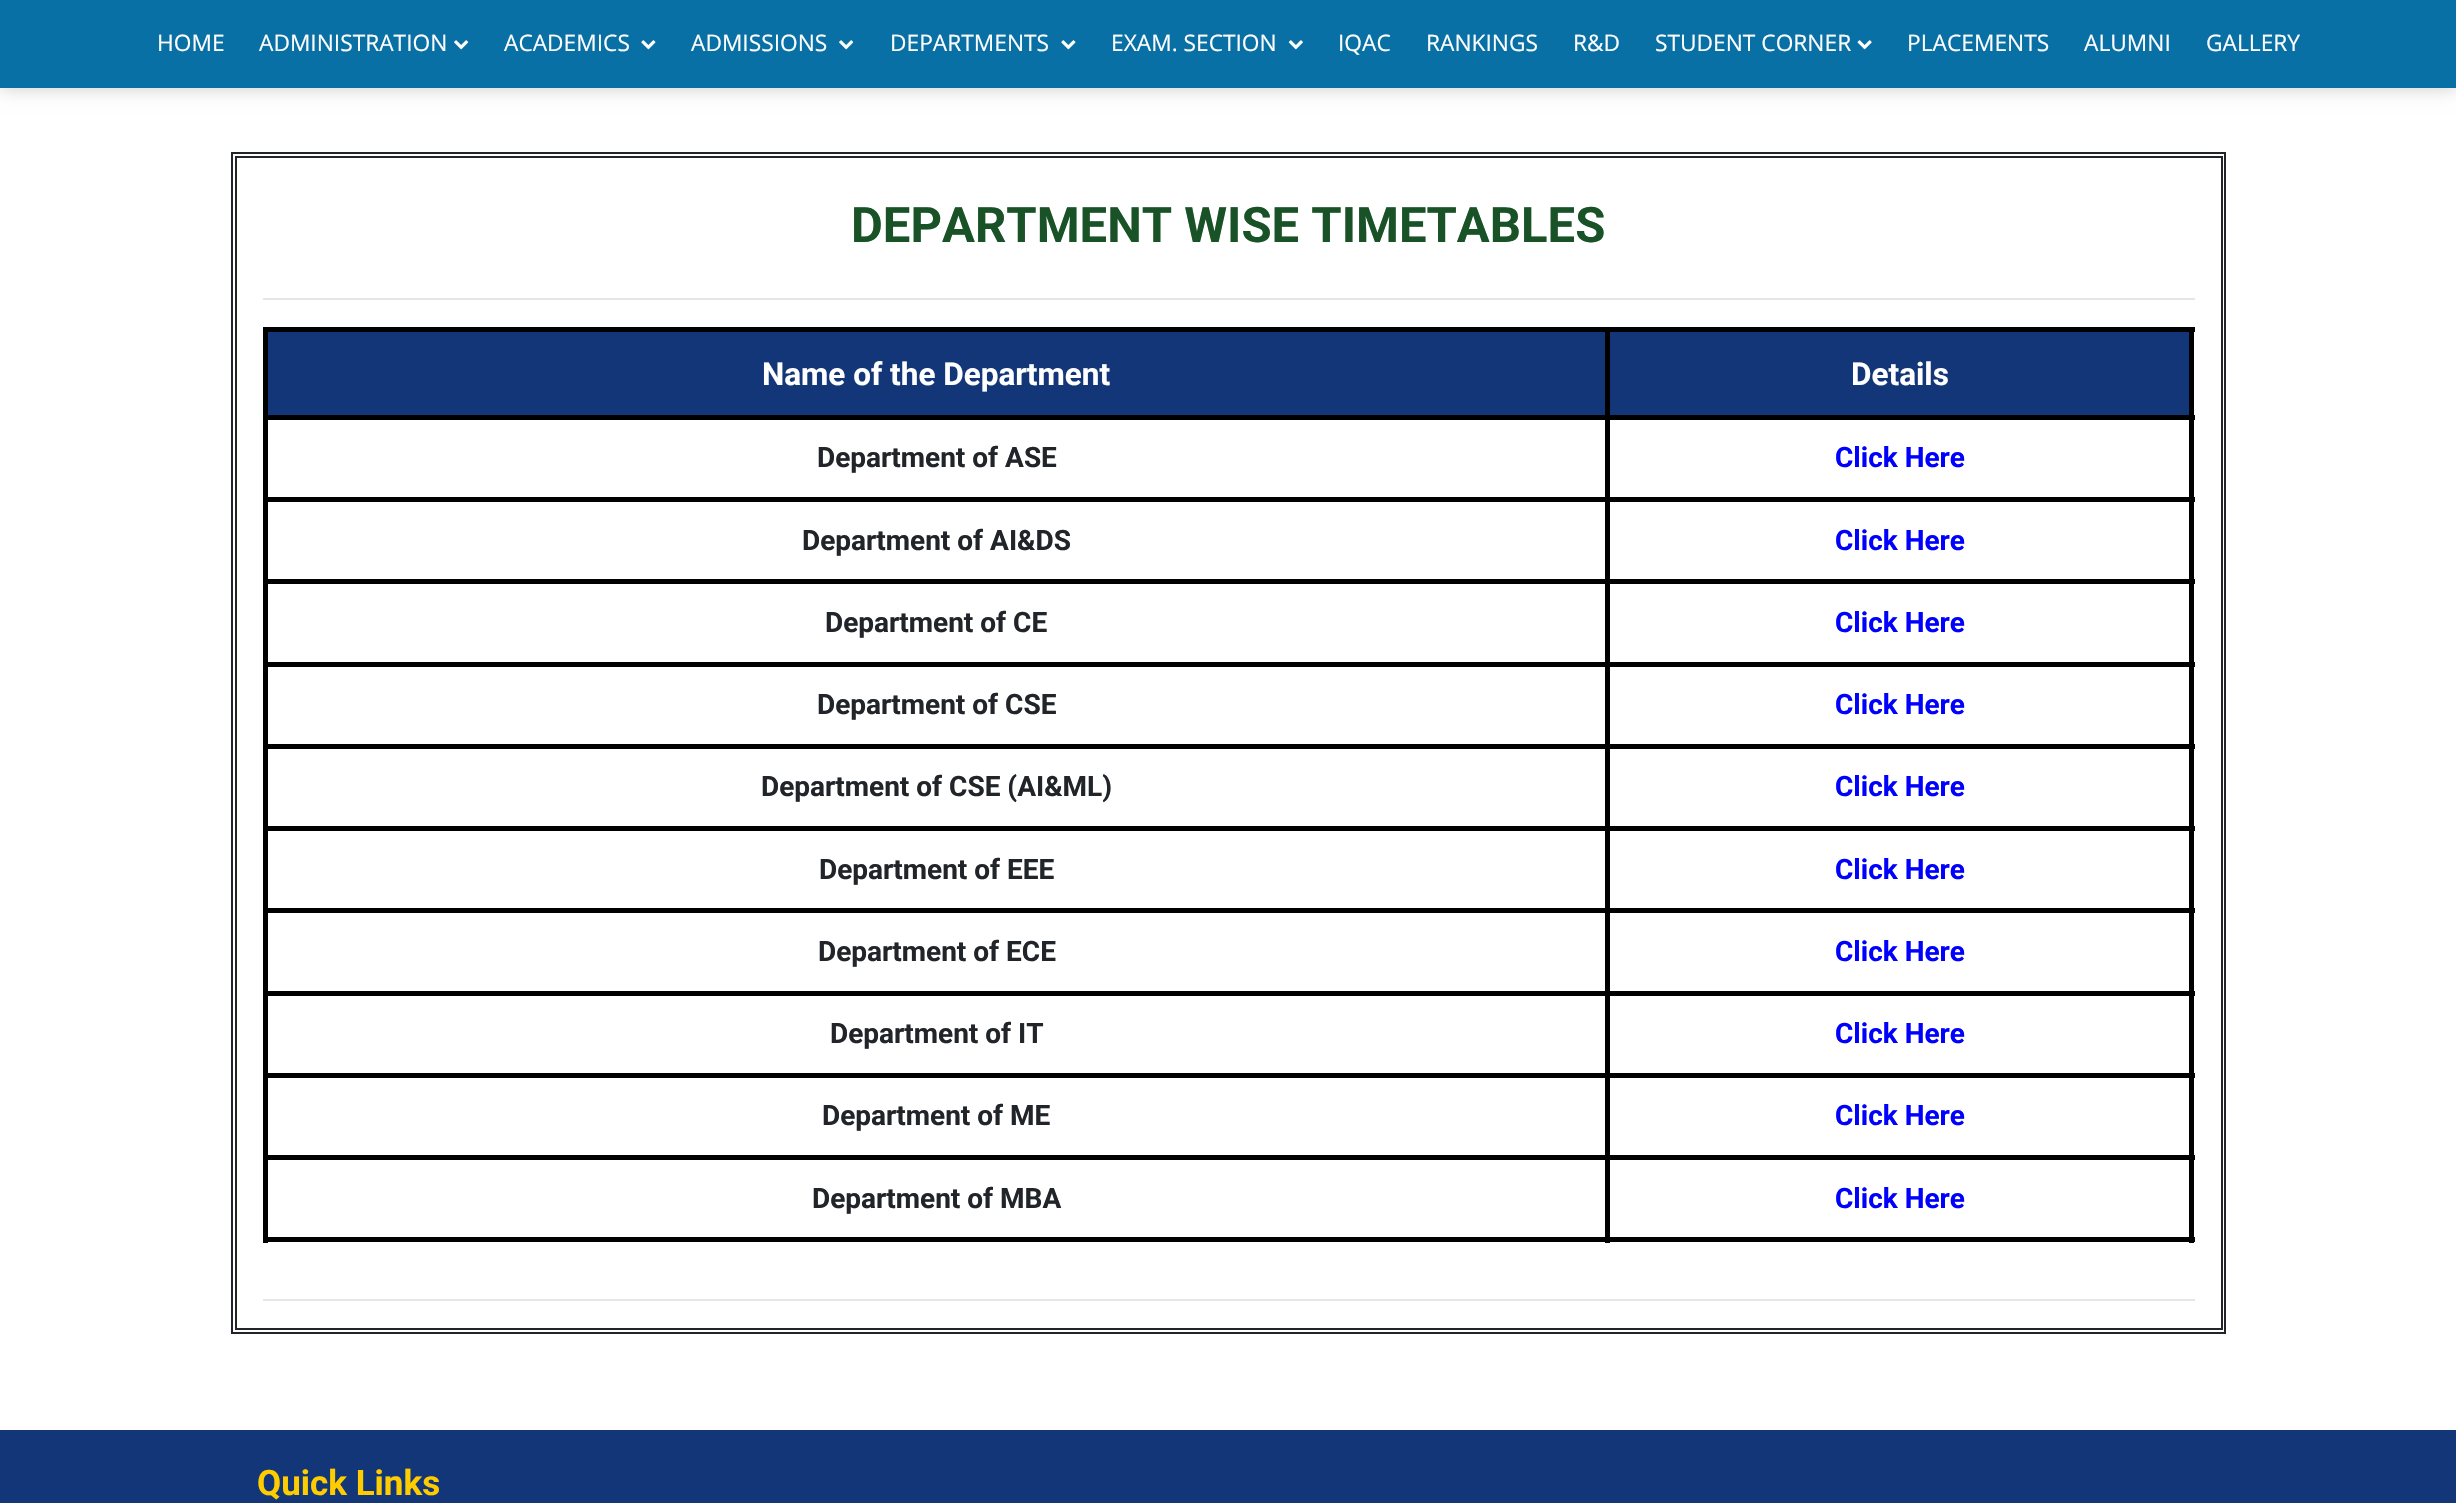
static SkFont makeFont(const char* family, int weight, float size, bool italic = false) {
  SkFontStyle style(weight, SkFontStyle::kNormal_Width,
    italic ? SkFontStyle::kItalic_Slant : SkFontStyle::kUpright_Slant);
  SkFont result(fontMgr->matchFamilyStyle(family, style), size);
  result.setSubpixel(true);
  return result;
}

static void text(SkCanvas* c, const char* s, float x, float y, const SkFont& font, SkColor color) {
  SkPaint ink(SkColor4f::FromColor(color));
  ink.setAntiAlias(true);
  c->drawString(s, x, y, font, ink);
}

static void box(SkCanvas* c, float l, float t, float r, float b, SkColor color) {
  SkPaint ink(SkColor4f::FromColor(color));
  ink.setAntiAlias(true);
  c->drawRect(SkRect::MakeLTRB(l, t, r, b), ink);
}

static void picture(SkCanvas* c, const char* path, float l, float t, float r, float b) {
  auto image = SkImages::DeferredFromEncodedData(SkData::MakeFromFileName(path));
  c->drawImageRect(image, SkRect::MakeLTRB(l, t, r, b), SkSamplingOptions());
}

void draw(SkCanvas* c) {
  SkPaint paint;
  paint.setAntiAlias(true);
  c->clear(0xffffffff);
  paint.setColor(0x33000000);
  paint.setMaskFilter(SkMaskFilter::MakeBlur(kNormal_SkBlurStyle, 9));
  c->drawRect(SkRect::MakeLTRB(0, 0, 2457, 88), paint);
  paint.setMaskFilter(nullptr);
  box(c, 0, 0, 2456, 88, 0xff0870a4);
  SkFont face1 = makeFont("Open Sans", 400, 22.75f);
  text(c, "HOME", 157, 51, face1, 0xffffffff);
  text(c, "ADMINISTRATION", 259, 51, face1, 0xffffffff);
  picture(c, "img_01.png", 454, 40, 469, 50);
  text(c, "ACADEMICS", 504, 51, face1, 0xffffffff);
  picture(c, "img_02.png", 641, 40, 656, 50);
  text(c, "ADMISSIONS", 691, 51, face1, 0xffffffff);
  picture(c, "img_01.png", 839, 40, 854, 50);
  text(c, "DEPARTMENTS", 890, 51, face1, 0xffffffff);
  picture(c, "img_02.png", 1061, 40, 1076, 50);
  text(c, "EXAM. SECTION", 1111, 51, face1, 0xffffffff);
  picture(c, "img_03.png", 1288, 40, 1303, 50);
  text(c, "IQAC", 1338, 51, face1, 0xffffffff);
  text(c, "RANKINGS", 1426, 51, face1, 0xffffffff);
  text(c, "R&D", 1573, 51, face1, 0xffffffff);
  text(c, "STUDENT CORNER", 1655, 51, face1, 0xffffffff);
  picture(c, "img_04.png", 1857, 40, 1872, 50);
  text(c, "PLACEMENTS", 1907, 51, face1, 0xffffffff);
  text(c, "ALUMNI", 2084, 51, face1, 0xffffffff);
  text(c, "GALLERY", 2206, 51, face1, 0xffffffff);
  paint.setStyle(SkPaint::kStroke_Style);
  paint.setStrokeWidth(2);
  paint.setColor(0xff212529);
  c->drawRect(SkRect::MakeLTRB(232, 153, 2225, 1333), paint);
  c->drawRect(SkRect::MakeLTRB(236, 157, 2222, 1329), paint);
  SkFont face2 = makeFont("Roboto", 700, 49);
  text(c, "DEPARTMENT WISE TIMETABLES", 851, 242, face2, 0xff195226);
  box(c, 263, 298, 2195, 300, 0xffe6e6e6);
  box(c, 268, 332, 2189, 415, 0xff123678);
  box(c, 263, 327, 2195, 332, 0xff000000);
  box(c, 263, 415, 2195, 420, 0xff000000);
  box(c, 263, 497, 2195, 502, 0xff000000);
  box(c, 263, 579, 2195, 584, 0xff000000);
  box(c, 263, 662, 2195, 667, 0xff000000);
  box(c, 263, 744, 2195, 749, 0xff000000);
  box(c, 263, 826, 2195, 831, 0xff000000);
  box(c, 263, 908, 2195, 913, 0xff000000);
  box(c, 263, 991, 2195, 996, 0xff000000);
  box(c, 263, 1073, 2195, 1078, 0xff000000);
  box(c, 263, 1155, 2195, 1160, 0xff000000);
  box(c, 2189, 1155, 2194, 1243, 0xff000000);
  box(c, 2189, 1073, 2194, 1160, 0xff000000);
  box(c, 2189, 991, 2194, 1078, 0xff000000);
  box(c, 2189, 908, 2194, 996, 0xff000000);
  box(c, 2189, 826, 2194, 914, 0xff000000);
  box(c, 2189, 744, 2194, 831, 0xff000000);
  box(c, 2189, 662, 2194, 749, 0xff000000);
  box(c, 2189, 579, 2194, 667, 0xff000000);
  box(c, 2189, 497, 2194, 585, 0xff000000);
  box(c, 2189, 415, 2194, 502, 0xff000000);
  box(c, 2189, 327, 2194, 420, 0xff000000);
  box(c, 263, 1237, 2195, 1242, 0xff000000);
  box(c, 263, 1155, 268, 1243, 0xff000000);
  box(c, 263, 1073, 268, 1160, 0xff000000);
  box(c, 263, 991, 268, 1078, 0xff000000);
  box(c, 263, 908, 268, 996, 0xff000000);
  box(c, 263, 826, 268, 914, 0xff000000);
  box(c, 263, 744, 268, 831, 0xff000000);
  box(c, 263, 662, 268, 749, 0xff000000);
  box(c, 263, 579, 268, 667, 0xff000000);
  box(c, 263, 497, 268, 585, 0xff000000);
  box(c, 263, 415, 268, 502, 0xff000000);
  box(c, 263, 327, 268, 420, 0xff000000);
  SkFont face3 = makeFont("Roboto", 700, 31.5f);
  text(c, "Name of the Department", 762, 385, face3, 0xffffffff);
  text(c, "Details", 1851, 385, face3, 0xffffffff);
  SkFont face4 = makeFont("Roboto", 700, 28);
  text(c, "Department of ASE", 817, 467, face4, 0xff212529);
  text(c, "Click Here", 1835, 467, face4, 0xff0000ff);
  text(c, "Department of AI&DS", 802, 550, face4, 0xff212529);
  text(c, "Click Here", 1835, 550, face4, 0xff0000ff);
  text(c, "Department of CE", 825, 632, face4, 0xff212529);
  text(c, "Click Here", 1835, 632, face4, 0xff0000ff);
  text(c, "Department of CSE", 817, 714, face4, 0xff212529);
  text(c, "Click Here", 1835, 714, face4, 0xff0000ff);
  text(c, "Department of CSE (AI&ML)", 761, 796, face4, 0xff212529);
  text(c, "Click Here", 1835, 796, face4, 0xff0000ff);
  text(c, "Department of EEE", 819, 879, face4, 0xff212529);
  text(c, "Click Here", 1835, 879, face4, 0xff0000ff);
  text(c, "Department of ECE", 818, 961, face4, 0xff212529);
  text(c, "Click Here", 1835, 961, face4, 0xff0000ff);
  text(c, "Department of IT", 830, 1043, face4, 0xff212529);
  text(c, "Click Here", 1835, 1043, face4, 0xff0000ff);
  text(c, "Department of ME", 822, 1125, face4, 0xff212529);
  text(c, "Click Here", 1835, 1125, face4, 0xff0000ff);
  text(c, "Department of MBA", 812, 1208, face4, 0xff212529);
  box(c, 1605, 327, 1610, 1243, 0xff000000);
  text(c, "Click Here", 1835, 1208, face4, 0xff0000ff);
  box(c, 263, 1299, 2195, 1301, 0xffe6e6e6);
  box(c, 0, 1430, 2456, 1503, 0xff123678);
  SkFont face5 = makeFont("Roboto", 700, 35);
  text(c, "Quick Links", 257, 1495, face5, 0xffffcc00);
}
